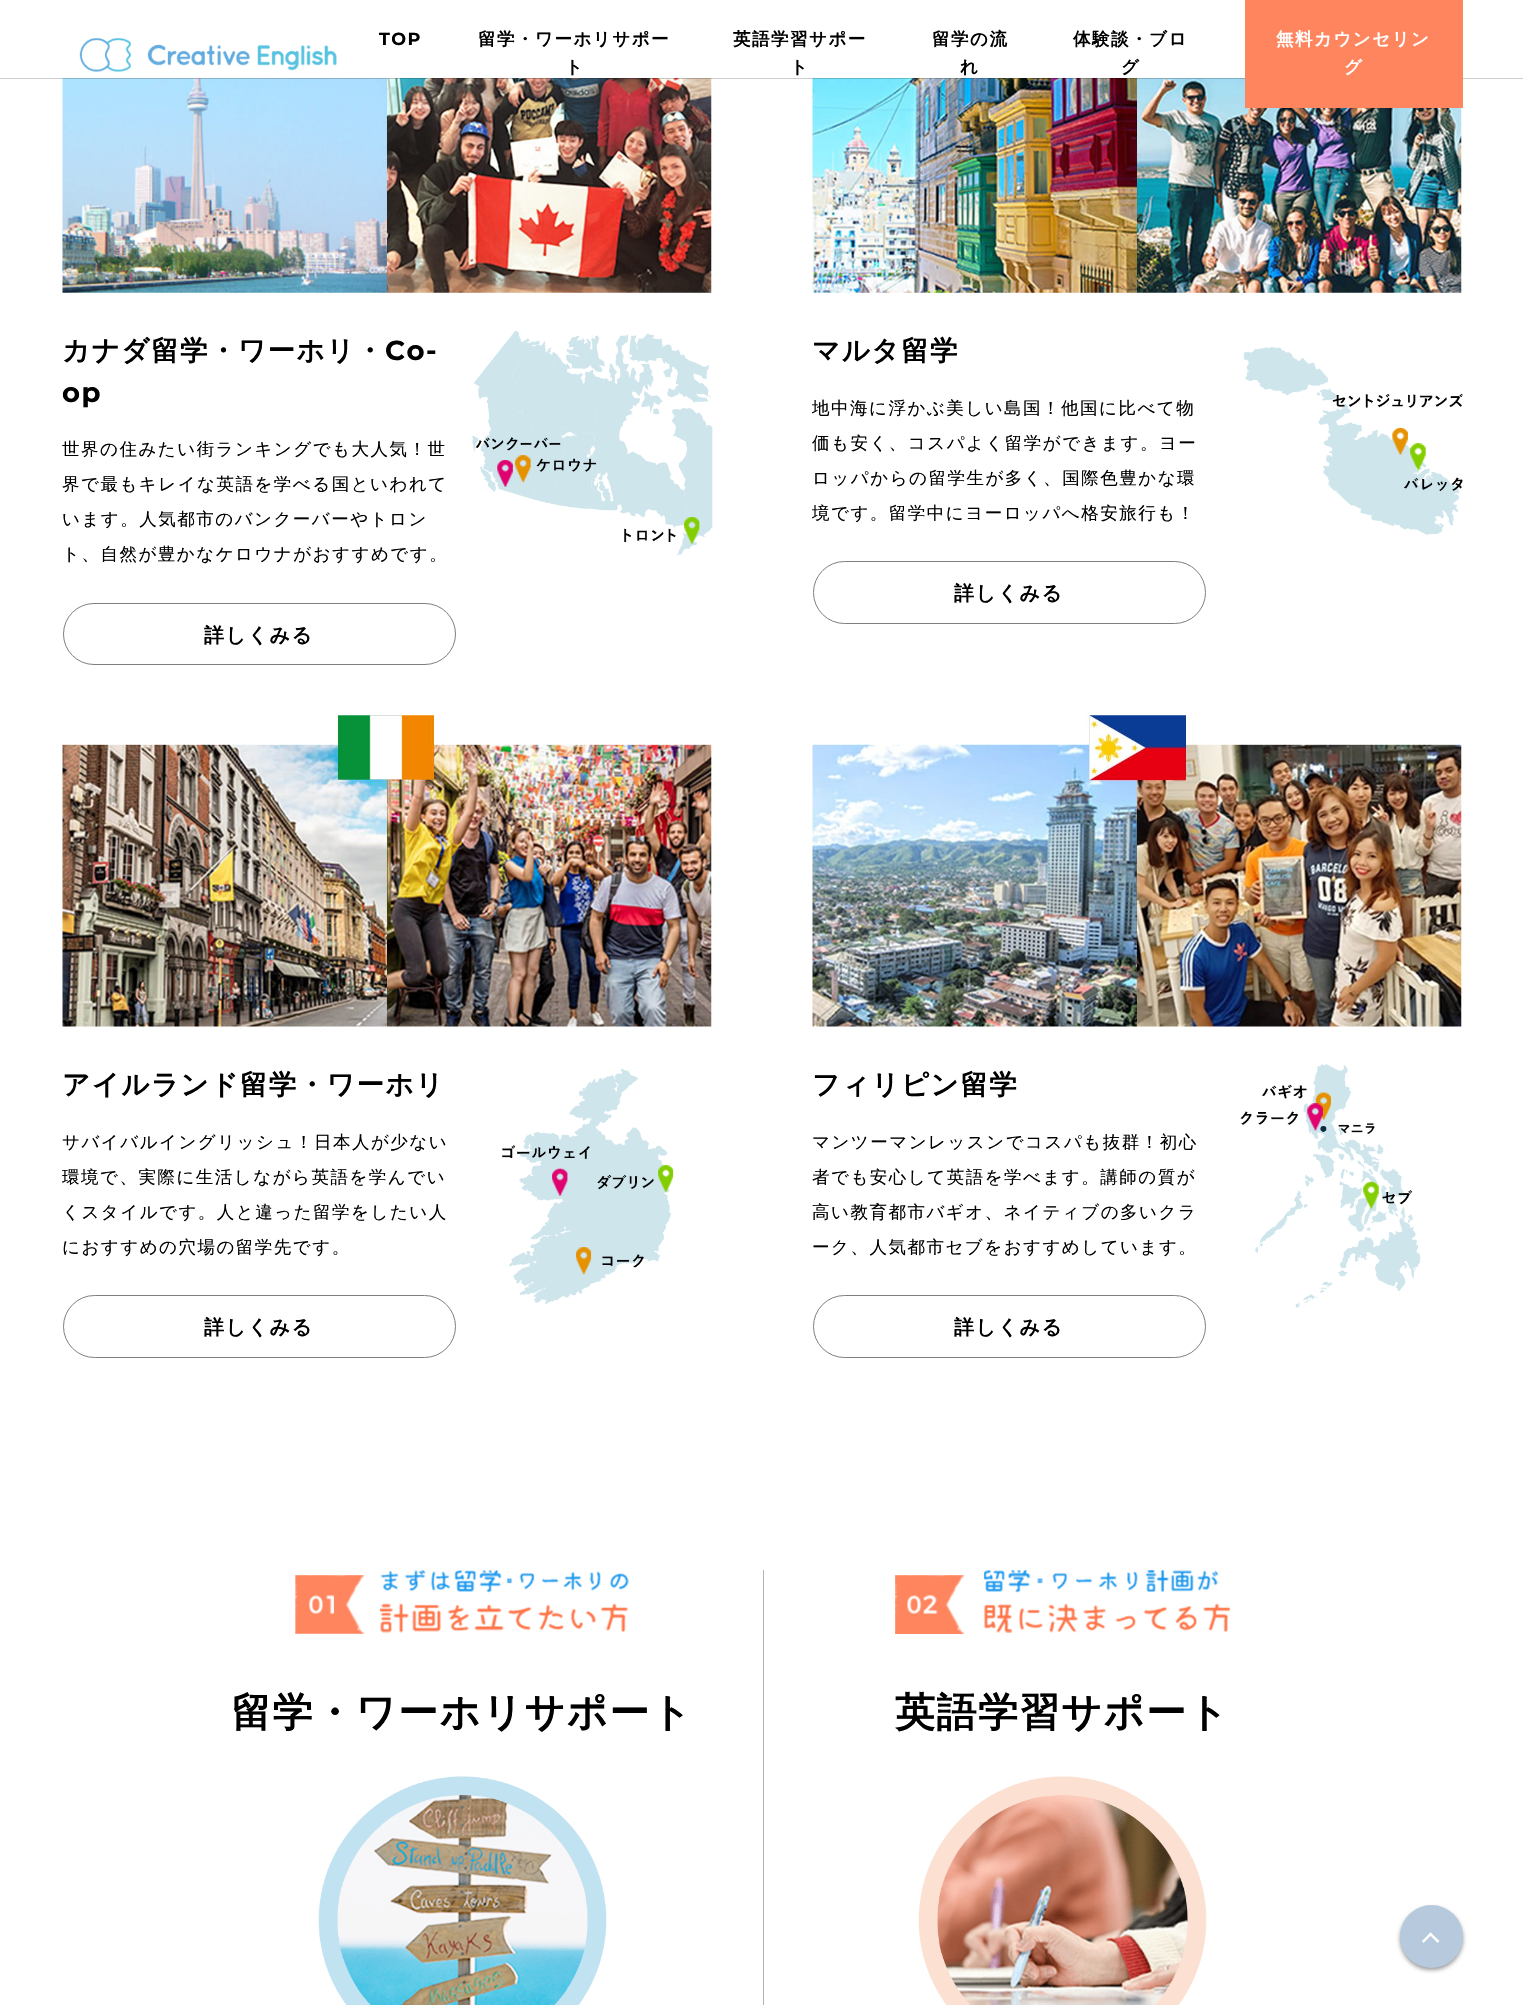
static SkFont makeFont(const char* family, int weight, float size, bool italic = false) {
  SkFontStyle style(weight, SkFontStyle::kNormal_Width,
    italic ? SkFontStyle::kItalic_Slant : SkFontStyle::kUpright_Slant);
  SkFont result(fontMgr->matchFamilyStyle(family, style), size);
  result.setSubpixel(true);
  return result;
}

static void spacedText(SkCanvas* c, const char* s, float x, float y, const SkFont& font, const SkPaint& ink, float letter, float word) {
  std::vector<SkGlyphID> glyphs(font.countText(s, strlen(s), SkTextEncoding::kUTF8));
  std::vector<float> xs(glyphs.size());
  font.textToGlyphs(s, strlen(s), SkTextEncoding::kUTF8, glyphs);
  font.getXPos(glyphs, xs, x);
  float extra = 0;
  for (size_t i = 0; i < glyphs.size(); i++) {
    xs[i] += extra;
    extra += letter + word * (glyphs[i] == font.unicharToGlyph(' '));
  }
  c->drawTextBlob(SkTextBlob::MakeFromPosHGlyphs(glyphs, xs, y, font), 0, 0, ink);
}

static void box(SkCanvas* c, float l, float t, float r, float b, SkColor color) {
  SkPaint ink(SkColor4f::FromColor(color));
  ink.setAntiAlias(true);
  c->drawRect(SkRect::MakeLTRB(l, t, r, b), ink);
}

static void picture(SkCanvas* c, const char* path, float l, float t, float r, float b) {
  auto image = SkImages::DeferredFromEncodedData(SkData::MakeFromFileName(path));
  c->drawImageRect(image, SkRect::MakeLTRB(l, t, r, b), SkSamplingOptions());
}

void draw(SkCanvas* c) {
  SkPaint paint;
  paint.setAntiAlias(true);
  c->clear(0xffffffff);
  picture(c, "img_02.png", 62, 78, 712, 293);
  picture(c, "img_04.png", 812, 78, 1462, 293);
  paint.setColor(0x33000000);
  c->drawPath(SkPathBuilder().moveTo(0, 78).lineTo(0, 79).lineTo(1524, 79).lineTo(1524, 1).lineTo(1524, 78).close().detach(), paint);
  picture(c, "img_01.png", 79, 37, 337, 73);
  SkFont face1 = makeFont("Montserrat", 700, 17.5f);
  paint.setColor(0xff000000);
  spacedText(c, "TOP", 379, 45, face1, paint, 1.5f, 0);
  SkFont face2 = makeFont("WenQuanYi Zen Hei", 700, 17.5f);
  spacedText(c, "留学・ワーホリサポー", 478, 45, face2, paint, 1.5f, 0);
  spacedText(c, "ト", 565, 73, face2, paint, 1.5f, 0);
  spacedText(c, "英語学習サポー", 733, 45, face2, paint, 1.5f, 0);
  spacedText(c, "ト", 790, 73, face2, paint, 1.5f, 0);
  spacedText(c, "留学の流", 932, 45, face2, paint, 1.5f, 0);
  spacedText(c, "れ", 960, 73, face2, paint, 1.5f, 0);
  spacedText(c, "体験談・ブロ", 1073, 45, face2, paint, 1.5f, 0);
  spacedText(c, "グ", 1121, 73, face2, paint, 1.5f, 0);
  box(c, 1245, 0, 1463, 108, 0xffff855e);
  paint.setColor(0xffffffff);
  spacedText(c, "無料カウンセリン", 1276, 45, face2, paint, 1.5f, 0);
  spacedText(c, "グ", 1344, 73, face2, paint, 1.5f, 0);
  SkFont face3 = makeFont("WenQuanYi Zen Hei", 700, 27.5f);
  paint.setColor(0xff000000);
  spacedText(c, "カナダ留学・ワーホリ・", 62, 360, face3, paint, 1.5f, 0);
  SkFont face4 = makeFont("Montserrat", 700, 27.5f);
  spacedText(c, "Co-", 385, 360, face4, paint, 1.5f, 0);
  spacedText(c, "op", 62, 402, face4, paint, 1.5f, 0);
  picture(c, "img_03.png", 472, 330, 713, 556);
  SkFont face5 = makeFont("WenQuanYi Zen Hei", 500, 17.5f);
  spacedText(c, "世界の住みたい街ランキングでも大人気！世", 62, 455, face5, paint, 1.5f, 0);
  spacedText(c, "界で最もキレイな英語を学べる国といわれて", 62, 490, face5, paint, 1.5f, 0);
  spacedText(c, "います。人気都市のバンクーバーやトロン", 62, 525, face5, paint, 1.5f, 0);
  spacedText(c, "ト、自然が豊かなケロウナがおすすめです。", 62, 560, face5, paint, 1.5f, 0);
  paint.setStyle(SkPaint::kStroke_Style);
  paint.setStrokeWidth(1);
  paint.setColor(0xff7e7e7e);
  c->drawRoundRect(SkRect::MakeLTRB(63.5f, 603.5f, 455.5f, 664.5f), 30.5f, 30.5f, paint);
  SkFont face6 = makeFont("WenQuanYi Zen Hei", 700, 20);
  paint.setStyle(SkPaint::kFill_Style);
  paint.setColor(0xff000000);
  spacedText(c, "詳しくみる", 204, 642, face6, paint, 1.5f, 0);
  spacedText(c, "マルタ留学", 812, 360, face3, paint, 1.5f, 0);
  picture(c, "img_05.png", 1243, 347, 1463, 535);
  spacedText(c, "地中海に浮かぶ美しい島国！他国に比べて物", 812, 414, face5, paint, 1.5f, 0);
  spacedText(c, "価も安く、コスパよく留学ができます。ヨー", 812, 449, face5, paint, 1.5f, 0);
  spacedText(c, "ロッパからの留学生が多く、国際色豊かな環", 812, 484, face5, paint, 1.5f, 0);
  spacedText(c, "境です。留学中にヨーロッパへ格安旅行も！", 812, 519, face5, paint, 1.5f, 0);
  paint.setStyle(SkPaint::kStroke_Style);
  paint.setColor(0xff7e7e7e);
  c->drawRoundRect(SkRect::MakeLTRB(813.5f, 561.5f, 1205.5f, 623.5f), 31, 31, paint);
  paint.setStyle(SkPaint::kFill_Style);
  paint.setColor(0xff000000);
  spacedText(c, "詳しくみる", 954, 600, face6, paint, 1.5f, 0);
  picture(c, "img_06.png", 62, 715, 712, 1027);
  spacedText(c, "アイルランド留学・ワーホリ", 62, 1094, face3, paint, 1.5f, 0);
  picture(c, "img_07.png", 502, 1069, 674, 1304);
  spacedText(c, "サバイバルイングリッシュ！日本人が少ない", 62, 1148, face5, paint, 1.5f, 0);
  spacedText(c, "環境で、実際に生活しながら英語を学んでい", 62, 1183, face5, paint, 1.5f, 0);
  spacedText(c, "くスタイルです。人と違った留学をしたい人", 62, 1218, face5, paint, 1.5f, 0);
  spacedText(c, "におすすめの穴場の留学先です。", 62, 1253, face5, paint, 1.5f, 0);
  paint.setStyle(SkPaint::kStroke_Style);
  paint.setColor(0xff7e7e7e);
  c->drawRoundRect(SkRect::MakeLTRB(63.5f, 1295.5f, 455.5f, 1357.5f), 31, 31, paint);
  paint.setStyle(SkPaint::kFill_Style);
  paint.setColor(0xff000000);
  spacedText(c, "詳しくみる", 204, 1334, face6, paint, 1.5f, 0);
  picture(c, "img_08.png", 812, 715, 1462, 1027);
  spacedText(c, "フィリピン留学", 812, 1094, face3, paint, 1.5f, 0);
  picture(c, "img_09.png", 1240, 1064, 1421, 1308);
  spacedText(c, "マンツーマンレッスンでコスパも抜群！初心", 812, 1148, face5, paint, 1.5f, 0);
  spacedText(c, "者でも安心して英語を学べます。講師の質が", 812, 1183, face5, paint, 1.5f, 0);
  spacedText(c, "高い教育都市バギオ、ネイティブの多いクラ", 812, 1218, face5, paint, 1.5f, 0);
  spacedText(c, "ーク、人気都市セブをおすすめしています。", 812, 1253, face5, paint, 1.5f, 0);
  paint.setStyle(SkPaint::kStroke_Style);
  paint.setColor(0xff7e7e7e);
  c->drawRoundRect(SkRect::MakeLTRB(813.5f, 1295.5f, 1205.5f, 1357.5f), 31, 31, paint);
  paint.setStyle(SkPaint::kFill_Style);
  paint.setColor(0xff000000);
  spacedText(c, "詳しくみる", 954, 1334, face6, paint, 1.5f, 0);
  picture(c, "img_10.png", 295, 1570, 629, 1634);
  SkFont face7 = makeFont("WenQuanYi Zen Hei", 700, 40);
  spacedText(c, "留学・ワーホリサポート", 231, 1726, face7, paint, 1.5f, 0);
  picture(c, "img_11.png", 318, 1776, 607, 2005);
  box(c, 763, 1570, 764, 2005, 0xffb2b2b2);
  picture(c, "img_12.png", 895, 1570, 1230, 1634);
  spacedText(c, "英語学習サポート", 895, 1726, face7, paint, 1.5f, 0);
  picture(c, "img_13.png", 918, 1776, 1207, 2005);
  paint.setColor(0x66000000);
  paint.setMaskFilter(SkMaskFilter::MakeBlur(kNormal_SkBlurStyle, 2));
  c->drawRoundRect(SkRect::MakeLTRB(1400, 1908, 1463, 1970), 31, 31, paint);
  paint.setMaskFilter(nullptr);
  paint.setColor(0xffb6c9dd);
  c->drawCircle(1431.5f, 1936.5f, 31.5f, paint);
  paint.setColor(0xffffffff);
  c->drawPath(SkPathBuilder().moveTo(1430.5f, 1932.5f).lineTo(1439.5f, 1941).lineTo(1437.5f, 1943).lineTo(1429, 1934).close().detach(), paint);
  c->drawPath(SkPathBuilder().moveTo(1430.5f, 1932.5f).lineTo(1432.5f, 1934).lineTo(1423.5f, 1943).lineTo(1422, 1941).close().detach(), paint);
}
